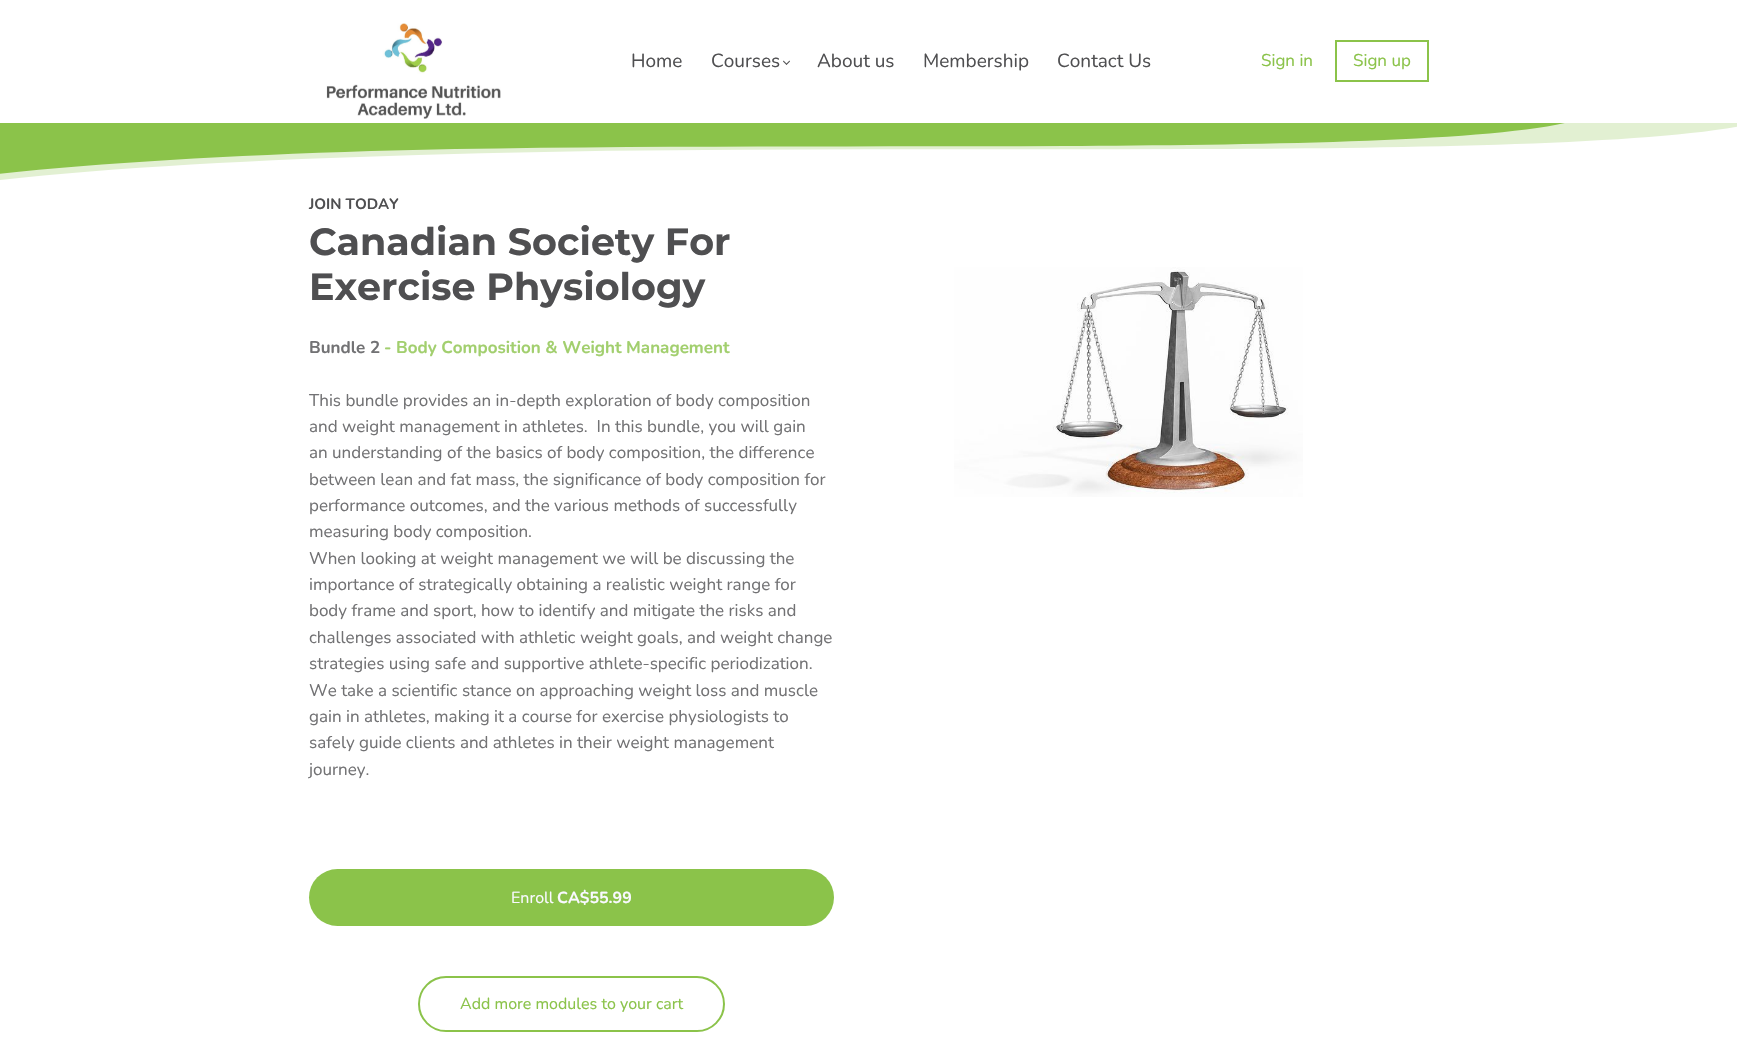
static SkFont makeFont(const char* family, int weight, float size, bool italic = false) {
  SkFontStyle style(weight, SkFontStyle::kNormal_Width,
    italic ? SkFontStyle::kItalic_Slant : SkFontStyle::kUpright_Slant);
  SkFont result(fontMgr->matchFamilyStyle(family, style), size);
  result.setSubpixel(true);
  return result;
}

static void text(SkCanvas* c, const char* s, float x, float y, const SkFont& font, SkColor color) {
  SkPaint ink(SkColor4f::FromColor(color));
  ink.setAntiAlias(true);
  c->drawString(s, x, y, font, ink);
}

static void roundBox(SkCanvas* c, float l, float t, float r, float b, float radius, SkColor color) {
  SkPaint ink(SkColor4f::FromColor(color));
  ink.setAntiAlias(true);
  c->drawRoundRect(SkRect::MakeLTRB(l, t, r, b), radius, radius, ink);
}

static void picture(SkCanvas* c, const char* path, float l, float t, float r, float b) {
  auto image = SkImages::DeferredFromEncodedData(SkData::MakeFromFileName(path));
  c->drawImageRect(image, SkRect::MakeLTRB(l, t, r, b), SkSamplingOptions());
}

void draw(SkCanvas* c) {
  SkPaint paint;
  paint.setAntiAlias(true);
  c->clear(0xffffffff);
  picture(c, "img_01.png", 326, 23, 501, 119);
  SkFont face1 = makeFont("Nunito", 400, 19);
  text(c, "Home", 631, 67, face1, 0xff4f4f51);
  text(c, "Courses", 711, 67, face1, 0xff4f4f51);
  paint.setColor(0xff4f4f51);
  c->drawPath(SkPathBuilder().moveTo(790, 61.5f).lineTo(786.5f, 65).lineTo(786, 64).lineTo(789.5f, 60.5f).close().detach(), paint);
  c->drawPath(SkPathBuilder().moveTo(787, 64).lineTo(786.5f, 65).lineTo(783, 61.5f).lineTo(783.5f, 60.5f).close().detach(), paint);
  text(c, "About us", 817, 67, face1, 0xff4f4f51);
  text(c, "Membership", 923, 67, face1, 0xff4f4f51);
  text(c, "Contact Us", 1057, 67, face1, 0xff4f4f51);
  SkFont face2 = makeFont("Nunito", 400, 17);
  text(c, "Sign in", 1261, 66, face2, 0xff8bc34a);
  paint.setStyle(SkPaint::kStroke_Style);
  paint.setStrokeWidth(2);
  paint.setColor(0xff8bc34a);
  c->drawRect(SkRect::MakeLTRB(1336, 41, 1428, 81), paint);
  text(c, "Sign up", 1353, 66, face2, 0xff8bc34a);
  c->save();
  c->clipRect(SkRect::MakeLTRB(0, 123, 1737, 183));
  paint.setStyle(SkPaint::kFill_Style);
  paint.setColor(0xffe2f0d2);
  c->drawPath(SkPathBuilder().moveTo(418, 155).cubicTo(666, 147, 935, 150, 1193, 149).cubicTo(1403, 148, 1675, 145, 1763, 121).lineTo(-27, 121).lineTo(-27, 183).cubicTo(88, 169, 245, 160, 418, 155).close().detach(), paint);
  paint.setColor(0xff8bc34a);
  c->drawPath(SkPathBuilder().moveTo(371, 151).cubicTo(593, 145, 833, 147, 1064, 146).cubicTo(1252, 145, 1495, 142, 1573, 121).lineTo(-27, 121).lineTo(-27, 177).cubicTo(76, 164, 217, 156, 371, 151).close().detach(), paint);
  c->restore();
  SkFont face3 = makeFont("Nunito", 700, 15);
  text(c, "JOIN TODAY", 309, 209, face3, 0xff4f4f51);
  SkFont face4 = makeFont("Montserrat", 700, 38);
  text(c, "Canadian Society For", 309, 255, face4, 0xff4f4f51);
  text(c, "Exercise Physiology", 309, 300, face4, 0xff4f4f51);
  SkFont face5 = makeFont("Nunito", 700, 17);
  text(c, "Bundle 2", 309, 353, face5, 0xff727274);
  text(c, "- Body Composition & Weight Management", 384, 353, face5, 0xffa2cf6e);
  text(c, "This bundle provides an in-depth exploration of body composition", 309, 406, face2, 0xff727274);
  text(c, "and weight management in athletes.  In this bundle, you will gain", 309, 432, face2, 0xff727274);
  text(c, "an understanding of the basics of body composition, the difference", 309, 458, face2, 0xff727274);
  text(c, "between lean and fat mass, the significance of body composition for", 309, 485, face2, 0xff727274);
  text(c, "performance outcomes, and the various methods of successfully", 309, 511, face2, 0xff727274);
  text(c, "measuring body composition.", 309, 537, face2, 0xff727274);
  text(c, "When looking at weight management we will be discussing the", 309, 564, face2, 0xff727274);
  text(c, "importance of strategically obtaining a realistic weight range for", 309, 590, face2, 0xff727274);
  text(c, "body frame and sport, how to identify and mitigate the risks and", 309, 616, face2, 0xff727274);
  text(c, "challenges associated with athletic weight goals, and weight change", 309, 643, face2, 0xff727274);
  text(c, "strategies using safe and supportive athlete-specific periodization.", 309, 669, face2, 0xff727274);
  text(c, "We take a scientific stance on approaching weight loss and muscle", 309, 696, face2, 0xff727274);
  text(c, "gain in athletes, making it a course for exercise physiologists to", 309, 722, face2, 0xff727274);
  text(c, "safely guide clients and athletes in their weight management", 309, 748, face2, 0xff727274);
  text(c, "journey.", 309, 775, face2, 0xff727274);
  roundBox(c, 309, 869, 834, 926, 28.5f, 0xff8bc34a);
  SkFont face6 = makeFont("Nunito", 400, 16);
  text(c, "Enroll", 511, 903, face6, 0xfff9f9ff);
  SkFont face7 = makeFont("Nunito", 700, 16);
  text(c, "CA$55.99", 557, 903, face7, 0xfff9f9ff);
  paint.setStyle(SkPaint::kStroke_Style);
  c->drawRoundRect(SkRect::MakeLTRB(419, 977, 724, 1031), 27, 27, paint);
  text(c, "Add more modules to your cart", 460, 1009, face6, 0xff8bc34a);
  picture(c, "img_02.png", 954, 267, 1303, 497);
}
